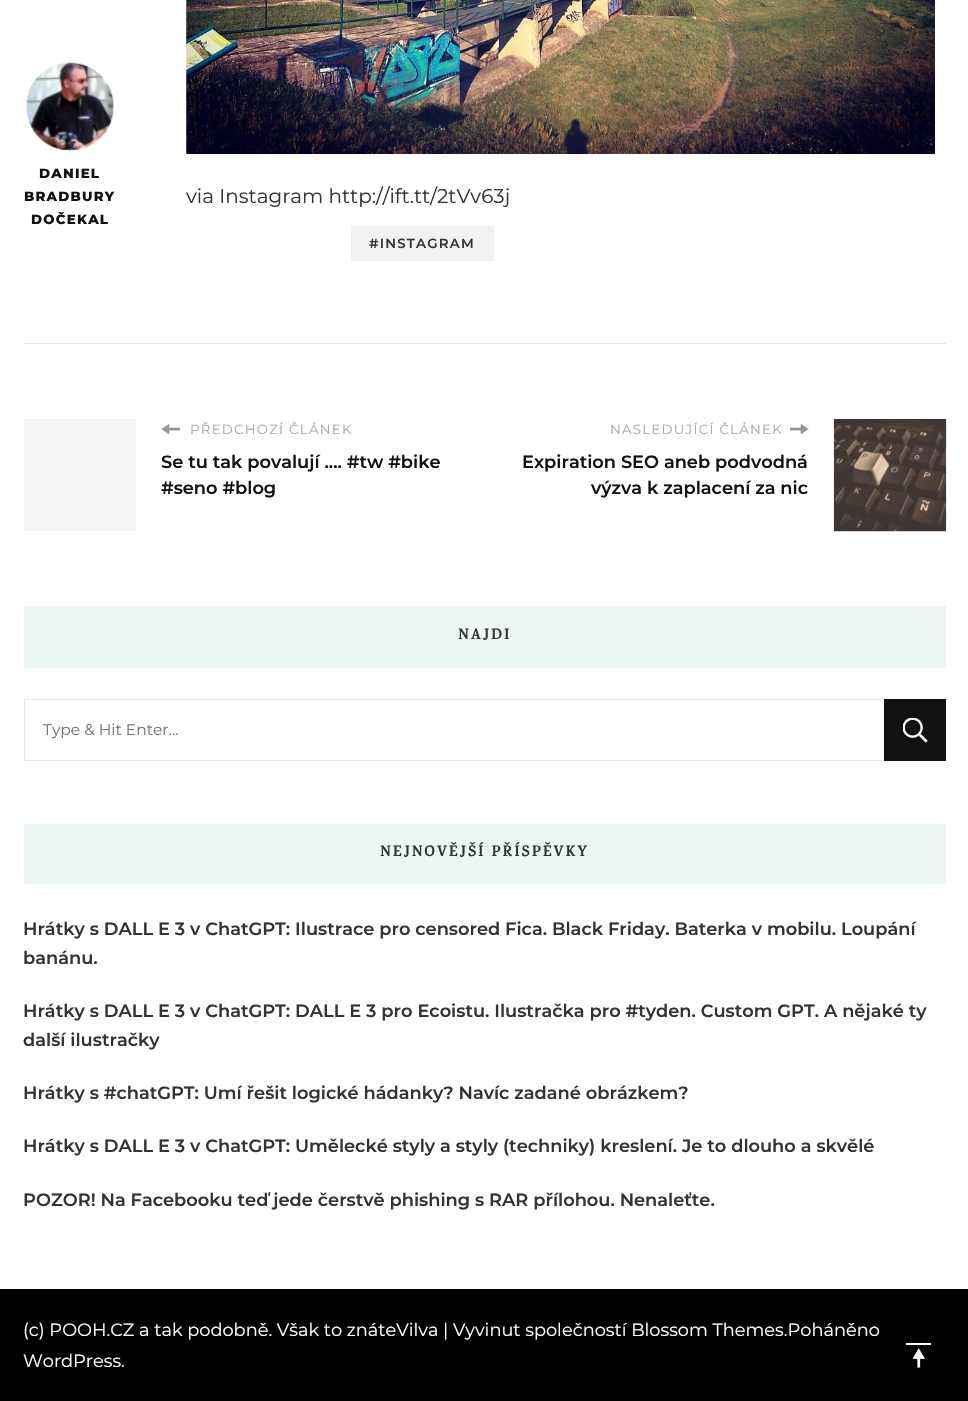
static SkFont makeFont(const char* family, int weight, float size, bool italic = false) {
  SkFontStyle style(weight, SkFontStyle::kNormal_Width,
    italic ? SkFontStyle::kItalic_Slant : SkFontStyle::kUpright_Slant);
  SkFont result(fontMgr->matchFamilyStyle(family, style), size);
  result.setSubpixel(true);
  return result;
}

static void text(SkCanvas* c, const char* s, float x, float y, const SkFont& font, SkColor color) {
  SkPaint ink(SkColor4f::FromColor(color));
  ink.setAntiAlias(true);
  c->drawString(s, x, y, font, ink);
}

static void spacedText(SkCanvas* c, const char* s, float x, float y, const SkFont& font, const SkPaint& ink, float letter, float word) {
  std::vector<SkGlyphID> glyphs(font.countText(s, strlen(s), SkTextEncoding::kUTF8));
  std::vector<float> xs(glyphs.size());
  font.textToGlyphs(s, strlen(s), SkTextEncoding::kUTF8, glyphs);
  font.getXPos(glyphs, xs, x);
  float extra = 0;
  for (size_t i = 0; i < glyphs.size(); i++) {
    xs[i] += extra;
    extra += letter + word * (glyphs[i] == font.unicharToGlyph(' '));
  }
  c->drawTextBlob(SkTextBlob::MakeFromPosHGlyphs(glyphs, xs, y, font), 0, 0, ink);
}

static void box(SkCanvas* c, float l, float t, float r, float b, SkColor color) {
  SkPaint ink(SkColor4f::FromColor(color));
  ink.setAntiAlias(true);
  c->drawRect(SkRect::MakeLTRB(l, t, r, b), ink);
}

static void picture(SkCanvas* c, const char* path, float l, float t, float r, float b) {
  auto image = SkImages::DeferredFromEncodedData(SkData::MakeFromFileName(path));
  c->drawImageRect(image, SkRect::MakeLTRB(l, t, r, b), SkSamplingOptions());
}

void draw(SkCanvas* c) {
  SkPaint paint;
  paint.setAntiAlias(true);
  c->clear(0xffffffff);
  picture(c, "img_01.png", 26, 62, 115, 151);
  SkFont face1 = makeFont("Montserrat", 800, 13.3f);
  paint.setColor(0xff111111);
  spacedText(c, "DANIEL", 39, 178, face1, paint, 1.25f, 0);
  spacedText(c, "BRADBURY", 24, 201, face1, paint, 1.25f, 0);
  spacedText(c, "DOČEKAL", 31, 224, face1, paint, 1.25f, 0);
  picture(c, "img_02.png", 186, 0, 935, 154);
  SkFont face2 = makeFont("Montserrat", 400, 20);
  text(c, "via Instagram http://ift.tt/2tVv63j", 186, 203, face2, 0xff333333);
  box(c, 351, 226, 494, 261, 0xfff2f2f2);
  SkFont face3 = makeFont("Montserrat", 600, 13.3f);
  paint.setColor(0xff333333);
  spacedText(c, "#INSTAGRAM", 369, 248, face3, paint, 1.25f, 0);
  box(c, 24, 343, 946, 344, 0xffe6e6e6);
  box(c, 24, 419, 136, 531, 0xfff5f5f5);
  picture(c, "img_03.png", 161, 424, 180, 434);
  SkFont face4 = makeFont("Montserrat", 400, 13.3f);
  paint.setColor(0xffa5a8b2);
  spacedText(c, "PŘEDCHOZÍ ČLÁNEK", 190, 434, face4, paint, 1.25f, 0);
  SkFont face5 = makeFont("Montserrat", 600, 17.78f);
  text(c, "Se tu tak povalují .... #tw #bike", 161, 468, face5, 0xff111111);
  text(c, "#seno #blog", 161, 494, face5, 0xff111111);
  spacedText(c, "NASLEDUJÍCÍ ČLÁNEK", 610, 434, face4, paint, 1.25f, 0);
  picture(c, "img_04.png", 790, 424, 809, 434);
  text(c, "Expiration SEO aneb podvodná", 522, 468, face5, 0xff111111);
  text(c, "výzva k zaplacení za nic", 591, 494, face5, 0xff111111);
  picture(c, "img_05.png", 833, 419, 947, 532);
  box(c, 24, 606, 946, 668, 0xffecf7f5);
  SkFont face6 = makeFont("Karma", 700, 15.5f);
  paint.setColor(0xff333333);
  spacedText(c, "NAJDI", 458, 639, face6, paint, 1.9f, 0);
  paint.setColor(0xffe6e6e6);
  c->drawPath(SkPathBuilder().moveTo(24, 699).lineTo(884, 699).lineTo(884, 700).lineTo(25, 700).close().detach(), paint);
  c->drawPath(SkPathBuilder().moveTo(884, 761).lineTo(24, 761).lineTo(25, 760).lineTo(884, 760).close().detach(), paint);
  paint.setColor(0x1a000000);
  c->drawPath(SkPathBuilder().moveTo(24, 761).lineTo(24, 699).lineTo(25, 700).lineTo(25, 760).close().detach(), paint);
  SkFont face7 = makeFont("Montserrat", 400, 15.5f);
  text(c, "Type & Hit Enter…", 43, 735, face7, 0xff757575);
  box(c, 884, 699, 946, 761, 0xff121212);
  picture(c, "img_06.png", 903, 718, 928, 743);
  box(c, 24, 824, 946, 884, 0xffecf7f5);
  paint.setColor(0xff333333);
  spacedText(c, "NEJNOVĚJŠÍ PŘÍSPĚVKY", 380, 856, face6, paint, 1.9f, 0);
  text(c, "Hrátky s DALL E 3 v ChatGPT: Ilustrace pro censored Fica. Black Friday. Baterka v mobilu. Loupání", 23, 935, face5, 0xff333333);
  text(c, "banánu.", 23, 964, face5, 0xff333333);
  text(c, "Hrátky s DALL E 3 v ChatGPT: DALL E 3 pro Ecoistu. Ilustračka pro #tyden. Custom GPT. A nějaké ty", 23, 1017, face5, 0xff333333);
  text(c, "další ilustračky", 23, 1046, face5, 0xff333333);
  text(c, "Hrátky s #chatGPT: Umí řešit logické hádanky? Navíc zadané obrázkem?", 23, 1099, face5, 0xff333333);
  text(c, "Hrátky s DALL E 3 v ChatGPT: Umělecké styly a styly (techniky) kreslení. Je to dlouho a skvělé", 23, 1152, face5, 0xff333333);
  text(c, "POZOR! Na Facebooku teď jede čerstvě phishing s RAR přílohou. Nenaleťte.", 23, 1206, face5, 0xff333333);
  box(c, 0, 1289, 968, 1401, 0xff000000);
  SkFont face8 = makeFont("Montserrat", 400, 17.78f);
  text(c, "(c) POOH.CZ a tak podobně. Však to znáteVilva | Vyvinut společností Blossom Themes.Poháněno", 23, 1336, face8, 0xffffffff);
  text(c, "WordPress.", 23, 1367, face8, 0xffffffff);
  picture(c, "img_07.png", 906, 1343, 931, 1368);
}
